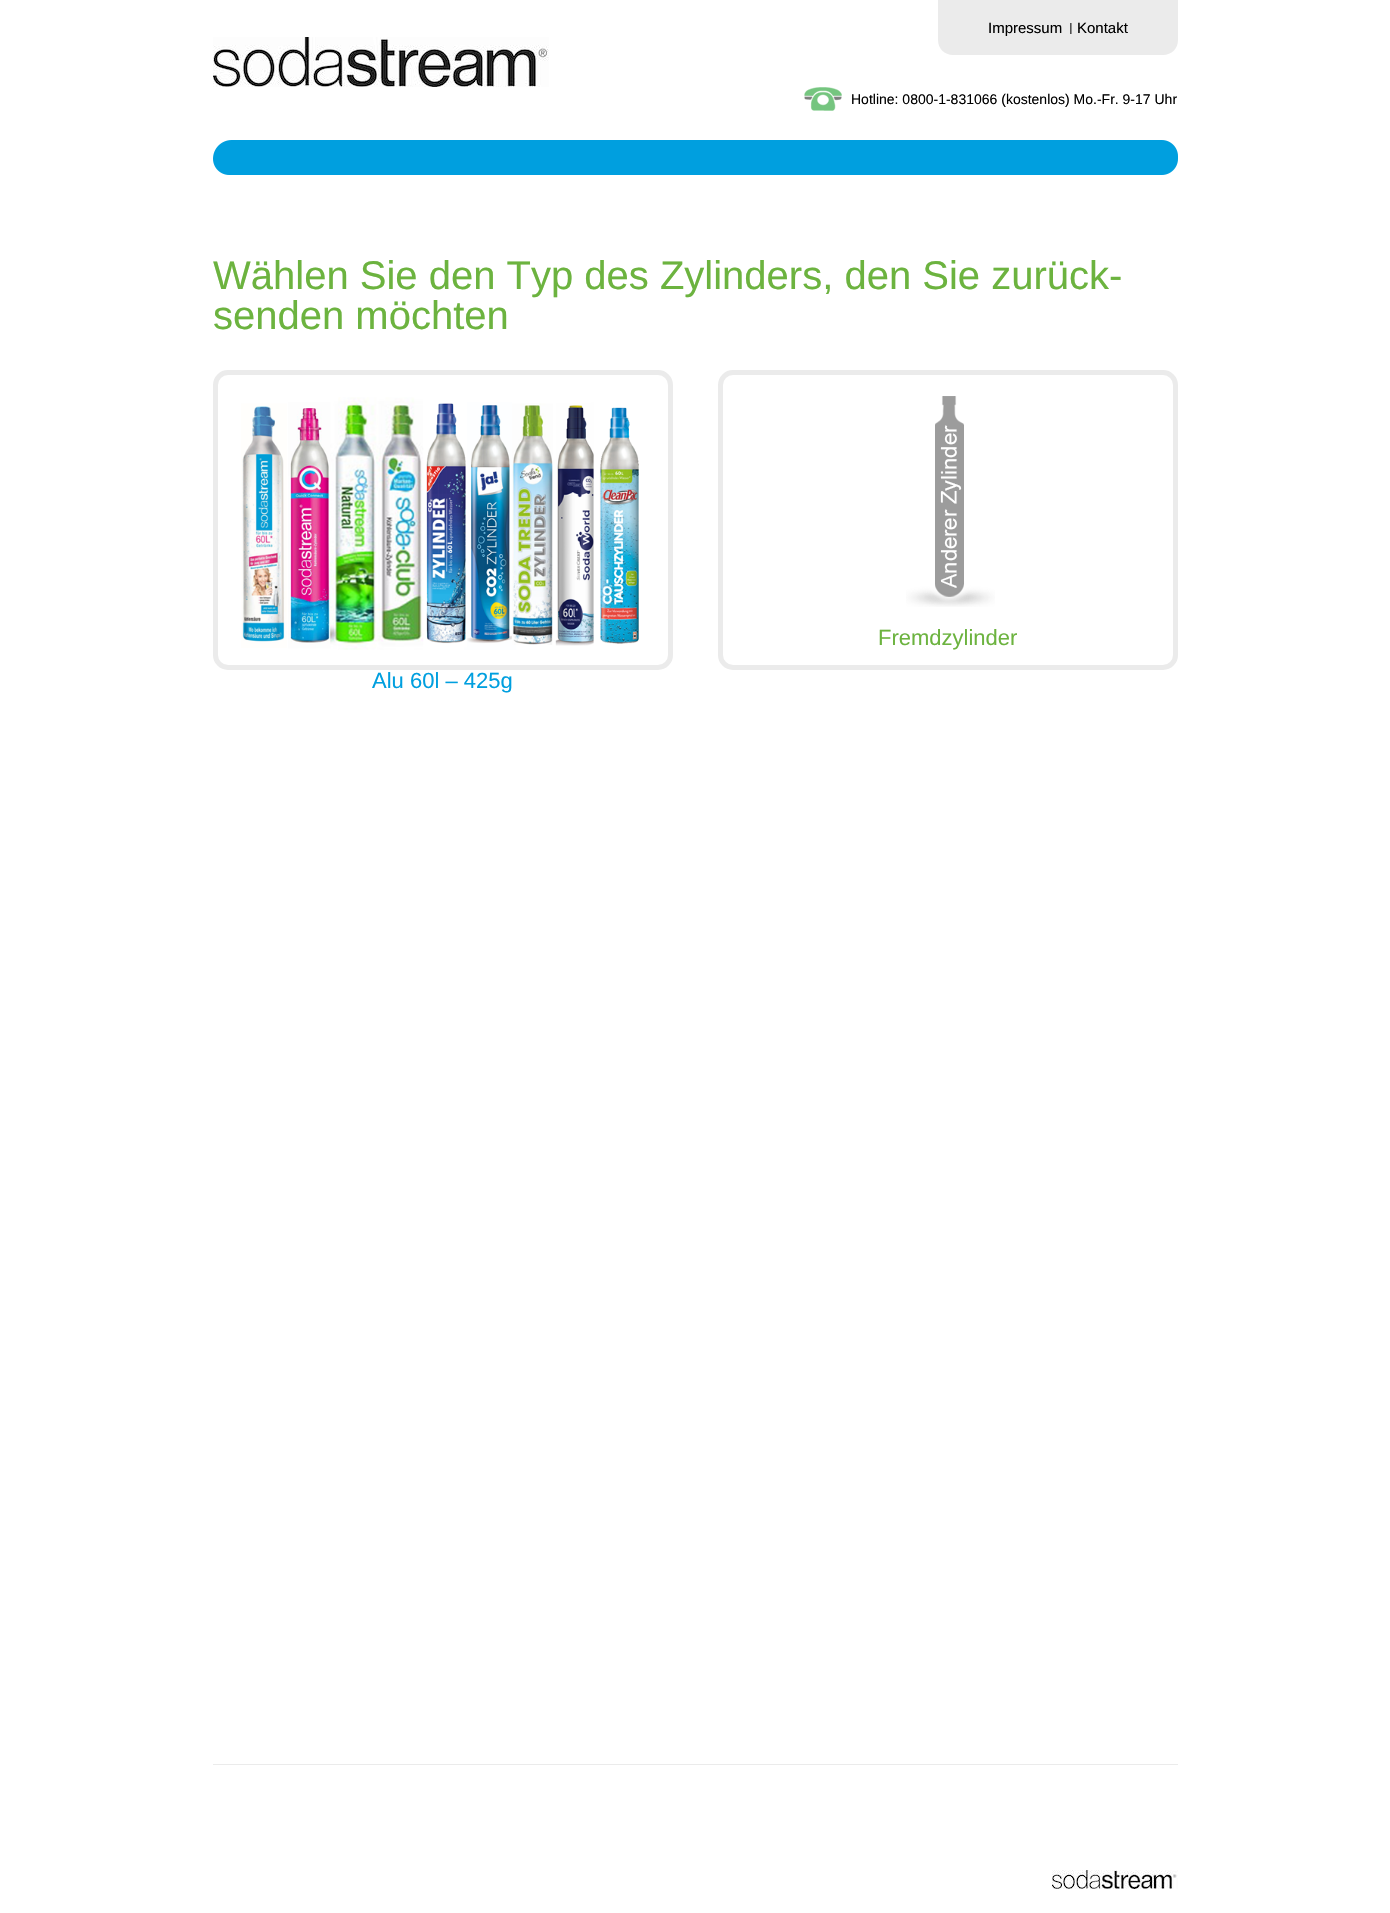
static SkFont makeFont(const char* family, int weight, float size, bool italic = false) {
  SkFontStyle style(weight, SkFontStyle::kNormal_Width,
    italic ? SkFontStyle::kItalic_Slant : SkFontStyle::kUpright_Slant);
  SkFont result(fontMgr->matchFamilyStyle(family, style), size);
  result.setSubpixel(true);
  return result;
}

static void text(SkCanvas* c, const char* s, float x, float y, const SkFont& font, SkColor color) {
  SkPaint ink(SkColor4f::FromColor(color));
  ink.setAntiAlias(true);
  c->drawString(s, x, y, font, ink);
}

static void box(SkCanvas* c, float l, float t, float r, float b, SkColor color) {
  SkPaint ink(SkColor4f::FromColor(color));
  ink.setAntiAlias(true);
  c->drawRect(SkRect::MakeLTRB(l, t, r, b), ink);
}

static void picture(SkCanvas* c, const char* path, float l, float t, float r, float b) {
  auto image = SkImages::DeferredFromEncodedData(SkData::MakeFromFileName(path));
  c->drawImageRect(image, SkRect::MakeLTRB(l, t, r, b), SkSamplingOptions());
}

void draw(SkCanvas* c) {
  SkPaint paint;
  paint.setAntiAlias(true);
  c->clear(0xffffffff);
  picture(c, "img_01.png", 213, 140, 1178, 175);
  paint.setColor(0xffebebeb);
  c->drawPath(SkPathBuilder().moveTo(938, 0).lineTo(1178, 0).lineTo(1178, 40).cubicTo(1178, 48.5f, 1171.5f, 55, 1163, 55).lineTo(953, 55).cubicTo(944.5f, 55, 938, 48.5f, 938, 40).close().detach(), paint);
  SkFont face1 = makeFont("Liberation Sans", 400, 15);
  text(c, "Impressum", 988, 33, face1, 0xff000000);
  picture(c, "img_02.png", 1070, 23, 1072, 34);
  text(c, "Kontakt", 1077, 33, face1, 0xff000000);
  picture(c, "img_03.png", 213, 37, 549, 87);
  picture(c, "img_04.png", 804, 87, 842, 111);
  SkFont face2 = makeFont("Liberation Sans", 400, 14);
  text(c, "Hotline: 0800-1-831066 (kostenlos) Mo.-Fr. 9-17 Uhr", 851, 104, face2, 0xff000000);
  SkFont face3 = makeFont("Liberation Sans", 400, 40);
  text(c, "Wählen Sie den Typ des Zylinders, den Sie zurück-", 213, 289, face3, 0xff6cb33f);
  text(c, "senden möchten", 213, 329, face3, 0xff6cb33f);
  paint.setStyle(SkPaint::kStroke_Style);
  paint.setStrokeWidth(5);
  c->drawRoundRect(SkRect::MakeLTRB(720.5f, 372.5f, 1175.5f, 667.5f), 12.5f, 12.5f, paint);
  picture(c, "img_05.png", 906, 396, 995, 607);
  SkFont face4 = makeFont("Liberation Sans", 400, 22);
  text(c, "Fremdzylinder", 878, 645, face4, 0xff6cb33f);
  c->drawRoundRect(SkRect::MakeLTRB(215.5f, 372.5f, 670.5f, 667.5f), 12.5f, 12.5f, paint);
  picture(c, "img_06.png", 241, 397, 639, 650);
  text(c, "Alu 60l – 425g", 372, 688, face4, 0xff009fdf);
  box(c, 213, 1764, 1178, 1765, 0xffebebeb);
  picture(c, "img_07.png", 1052, 1870, 1178, 1889);
}
